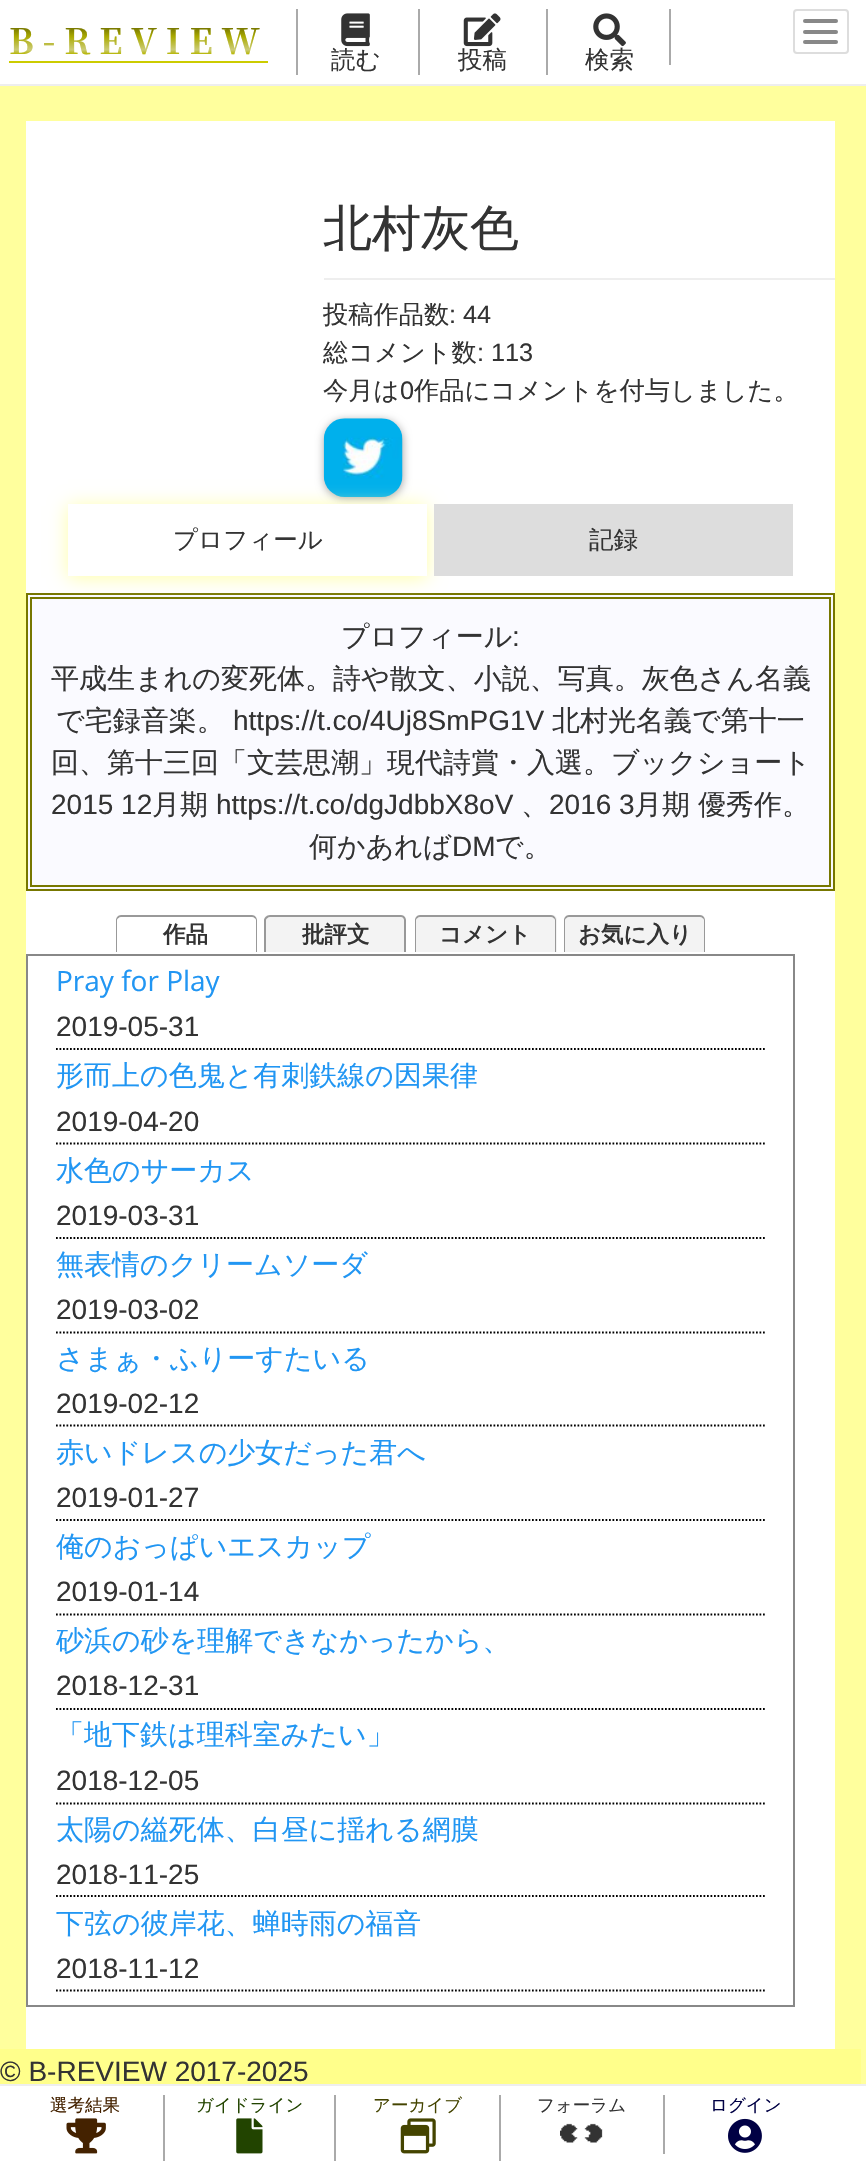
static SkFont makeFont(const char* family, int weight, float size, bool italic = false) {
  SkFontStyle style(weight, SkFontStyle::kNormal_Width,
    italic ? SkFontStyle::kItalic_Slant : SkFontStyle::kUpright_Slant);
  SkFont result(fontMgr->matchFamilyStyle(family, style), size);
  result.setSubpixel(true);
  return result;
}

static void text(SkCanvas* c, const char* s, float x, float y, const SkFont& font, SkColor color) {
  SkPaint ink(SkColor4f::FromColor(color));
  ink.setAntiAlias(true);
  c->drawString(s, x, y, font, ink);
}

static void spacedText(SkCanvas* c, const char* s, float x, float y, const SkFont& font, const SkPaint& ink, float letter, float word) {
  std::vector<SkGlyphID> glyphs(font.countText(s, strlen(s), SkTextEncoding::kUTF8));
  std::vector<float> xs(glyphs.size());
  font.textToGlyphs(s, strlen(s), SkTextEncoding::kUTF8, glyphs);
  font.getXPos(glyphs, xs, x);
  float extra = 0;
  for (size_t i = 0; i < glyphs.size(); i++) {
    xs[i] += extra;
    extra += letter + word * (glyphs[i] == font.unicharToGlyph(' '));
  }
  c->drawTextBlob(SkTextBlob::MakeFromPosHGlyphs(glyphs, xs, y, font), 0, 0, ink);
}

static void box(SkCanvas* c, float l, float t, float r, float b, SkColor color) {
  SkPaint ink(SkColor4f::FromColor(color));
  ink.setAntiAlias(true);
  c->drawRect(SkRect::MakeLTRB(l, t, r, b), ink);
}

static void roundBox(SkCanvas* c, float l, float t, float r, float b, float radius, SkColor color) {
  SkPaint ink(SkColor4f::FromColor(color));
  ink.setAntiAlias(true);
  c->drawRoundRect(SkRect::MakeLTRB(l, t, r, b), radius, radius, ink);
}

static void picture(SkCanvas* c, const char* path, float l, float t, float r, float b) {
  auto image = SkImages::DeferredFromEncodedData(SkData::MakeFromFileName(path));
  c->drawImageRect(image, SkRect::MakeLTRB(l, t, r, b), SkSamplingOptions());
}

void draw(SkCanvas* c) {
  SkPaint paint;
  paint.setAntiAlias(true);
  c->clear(0xffffff9d);
  box(c, 0, 0, 866, 84, 0xffffffff);
  box(c, 0, 84, 866, 86, 0xffeeeeee);
  box(c, 9, 61, 268, 63, 0xffcccc00);
  SkFont face1 = makeFont("Noto Serif JP", 700, 35);
  {
    const SkColor colors[] = {0xff777700, 0xffaaaa00, 0xffcccc77, 0xffb5b500, 0xffb0b000};
    const float stops[] = {0.2f, 0.4f, 0.7f, 0.8f, 1};
    const SkPoint ends[] = {{138, 19}, {138, 63}};
    paint.setShader(SkGradientShader::MakeLinear(ends, colors, stops, 5, SkTileMode::kClamp));
    paint.setAlpha(255);
  }
  spacedText(c, "B-REVIEW", 9, 54, face1, paint, 8.75f, 0);
  paint.setStyle(SkPaint::kStroke_Style);
  paint.setStrokeWidth(2);
  paint.setShader(nullptr);
  paint.setColor(0xffdddddd);
  c->drawRoundRect(SkRect::MakeLTRB(794, 10, 848, 53), 3, 3, paint);
  roundBox(c, 803, 19, 838, 23, 2, 0xff888888);
  roundBox(c, 803, 30, 838, 34, 2, 0xff888888);
  roundBox(c, 803, 40, 838, 44, 2, 0xff888888);
  box(c, 296, 9, 298, 75, 0xffaaaaaa);
  picture(c, "img_01.png", 341, 13, 370, 47);
  SkFont face2 = makeFont("WenQuanYi Zen Hei", 500, 24.5f);
  text(c, "読む", 331, 68, face2, 0xff333333);
  box(c, 546, 9, 548, 75, 0xffaaaaaa);
  box(c, 418, 9, 420, 75, 0xffaaaaaa);
  picture(c, "img_02.png", 463, 13, 501, 47);
  text(c, "投稿", 458, 68, face2, 0xff333333);
  box(c, 669, 9, 671, 65, 0xffaaaaaa);
  picture(c, "img_03.png", 593, 13, 626, 47);
  text(c, "検索", 585, 68, face2, 0xff333333);
  box(c, 26, 121, 835, 2049, 0xffffffff);
  SkFont face3 = makeFont("WenQuanYi Zen Hei", 500, 49);
  text(c, "北村灰色", 323, 245, face3, 0xff333333);
  box(c, 324, 278, 835, 280, 0xffeeeeee);
  SkFont face4 = makeFont("WenQuanYi Zen Hei", 500, 25.25f);
  text(c, "投稿作品数", 323, 323, face4, 0xff333333);
  SkFont face5 = makeFont("Liberation Sans", 400, 25.25f);
  text(c, ": 44", 449, 323, face5, 0xff333333);
  text(c, "総コメント数", 323, 361, face4, 0xff333333);
  text(c, ": 113", 477, 361, face5, 0xff333333);
  text(c, "今月は", 323, 399, face4, 0xff333333);
  text(c, "0", 400, 399, face5, 0xff333333);
  text(c, "作品にコメントを付与しました。", 414, 399, face4, 0xff333333);
  paint.setStyle(SkPaint::kFill_Style);
  paint.setColor(0xffaaaaaa);
  paint.setMaskFilter(SkMaskFilter::MakeBlur(kNormal_SkBlurStyle, 4.5f));
  c->drawRoundRect(SkRect::MakeLTRB(324, 420, 403, 499), 21, 21, paint);
  paint.setMaskFilter(nullptr);
  picture(c, "img_04.png", 323, 418, 403, 497);
  paint.setColor(0xfffafaff);
  c->drawRect(SkRect::MakeLTRB(27, 594, 834, 890), paint);
  paint.setStyle(SkPaint::kStroke_Style);
  paint.setColor(0xff777700);
  c->drawRect(SkRect::MakeLTRB(27, 594, 834, 890), paint);
  c->drawRect(SkRect::MakeLTRB(31, 598, 830, 886), paint);
  paint.setStyle(SkPaint::kFill_Style);
  paint.setColor(0xffffffaa);
  paint.setMaskFilter(SkMaskFilter::MakeBlur(kNormal_SkBlurStyle, 9));
  c->drawRect(SkRect::MakeLTRB(68, 506, 427, 578), paint);
  paint.setMaskFilter(nullptr);
  box(c, 68, 504, 427, 576, 0xffffffff);
  text(c, "プロフィール", 173, 548, face2, 0xff333333);
  box(c, 434, 504, 793, 576, 0xffdddddd);
  text(c, "記録", 589, 548, face2, 0xff333333);
  SkFont face6 = makeFont("WenQuanYi Zen Hei", 500, 28);
  text(c, "プロフィール", 341, 646, face6, 0xff333333);
  SkFont face7 = makeFont("Liberation Sans", 400, 28);
  text(c, ":", 512, 646, face7, 0xff333333);
  text(c, "平成生まれの変死体。詩や散文、小説、写真。灰色さん名義", 51, 688, face6, 0xff333333);
  text(c, "で宅録音楽。", 56, 730, face6, 0xff333333);
  text(c, "https://t.co/4Uj8SmPG1V", 233, 730, face7, 0xff333333);
  text(c, "北村光名義で第十一", 552, 730, face6, 0xff333333);
  text(c, "回、第十三回「文芸思潮」現代詩賞・入選。ブックショート", 51, 772, face6, 0xff333333);
  text(c, "2015 12", 51, 814, face7, 0xff333333);
  text(c, "月期", 152, 814, face6, 0xff333333);
  text(c, "https://t.co/dgJdbbX8oV", 216, 814, face7, 0xff333333);
  text(c, "、", 521, 814, face6, 0xff333333);
  text(c, "2016 3", 549, 814, face7, 0xff333333);
  text(c, "月期", 634, 814, face6, 0xff333333);
  text(c, "優秀作。", 698, 814, face6, 0xff333333);
  text(c, "何かあれば", 309, 856, face6, 0xff333333);
  text(c, "DM", 452, 856, face7, 0xff333333);
  text(c, "で。", 495, 856, face6, 0xff333333);
  paint.setColor(0xff999999);
  c->drawPath(SkPathBuilder(SkPathFillType::kEvenOdd).moveTo(121, 915).lineTo(252, 915).cubicTo(255, 915, 257, 918, 257, 920).lineTo(257, 952).lineTo(116, 952).lineTo(116, 920).cubicTo(116, 918, 118, 915, 121, 915).close().moveTo(121, 917).lineTo(252, 917).cubicTo(254, 917, 256, 919, 256, 920).lineTo(256, 952).lineTo(117, 952).lineTo(117, 920).cubicTo(117, 919, 119, 917, 121, 917).close().detach(), paint);
  SkFont face8 = makeFont("WenQuanYi Zen Hei", 700, 22.5f);
  text(c, "作品", 163, 942, face8, 0xff333333);
  paint.setColor(0xfff3f3f3);
  c->drawPath(SkPathBuilder().moveTo(269, 915).lineTo(401, 915).cubicTo(404, 915, 406, 917, 406, 920).lineTo(406, 952).lineTo(264, 952).lineTo(264, 920).cubicTo(264, 917, 266, 915, 269, 915).close().detach(), paint);
  paint.setColor(0xff999999);
  c->drawPath(SkPathBuilder(SkPathFillType::kEvenOdd).moveTo(270, 915).lineTo(401, 915).cubicTo(404, 915, 406, 918, 406, 920).lineTo(406, 952).lineTo(264, 952).lineTo(264, 920).cubicTo(264, 918, 267, 915, 270, 915).close().moveTo(270, 917).lineTo(401, 917).cubicTo(403, 917, 404, 919, 404, 920).lineTo(404, 952).lineTo(266, 952).lineTo(266, 920).cubicTo(266, 919, 268, 917, 270, 917).close().detach(), paint);
  text(c, "批評文", 302, 942, face8, 0xff333333);
  paint.setColor(0xfff3f3f3);
  c->drawPath(SkPathBuilder().moveTo(420, 915).lineTo(552, 915).cubicTo(555, 915, 557, 917, 557, 920).lineTo(557, 952).lineTo(415, 952).lineTo(415, 920).cubicTo(415, 917, 417, 915, 420, 915).close().detach(), paint);
  paint.setColor(0xff999999);
  c->drawPath(SkPathBuilder(SkPathFillType::kEvenOdd).moveTo(420, 915).lineTo(551, 915).cubicTo(554, 915, 556, 918, 556, 920).lineTo(556, 952).lineTo(415, 952).lineTo(415, 920).cubicTo(415, 918, 417, 915, 420, 915).close().moveTo(420, 917).lineTo(551, 917).cubicTo(553, 917, 555, 919, 555, 920).lineTo(555, 952).lineTo(416, 952).lineTo(416, 920).cubicTo(416, 919, 418, 917, 420, 917).close().detach(), paint);
  text(c, "コメント", 439, 942, face8, 0xff333333);
  paint.setColor(0xfff3f3f3);
  c->drawPath(SkPathBuilder().moveTo(569, 915).lineTo(700, 915).cubicTo(703, 915, 705, 917, 705, 920).lineTo(705, 952).lineTo(564, 952).lineTo(564, 920).cubicTo(564, 917, 566, 915, 569, 915).close().detach(), paint);
  paint.setColor(0xff999999);
  c->drawPath(SkPathBuilder(SkPathFillType::kEvenOdd).moveTo(569, 915).lineTo(700, 915).cubicTo(703, 915, 705, 918, 705, 920).lineTo(705, 952).lineTo(564, 952).lineTo(564, 920).cubicTo(564, 918, 566, 915, 569, 915).close().moveTo(569, 917).lineTo(700, 917).cubicTo(702, 917, 704, 919, 704, 920).lineTo(704, 952).lineTo(565, 952).lineTo(565, 920).cubicTo(565, 919, 567, 917, 569, 917).close().detach(), paint);
  text(c, "お気に入り", 578, 942, face8, 0xff333333);
  paint.setStyle(SkPaint::kStroke_Style);
  paint.setColor(0xff888888);
  c->drawRect(SkRect::MakeLTRB(27, 955, 794, 2006), paint);
  paint.setStrokeWidth(1.8f);
  paint.setColor(0xff000000);
  paint.setPathEffect(SkDashPathEffect::Make({{1.75f, 1.75f}}, 0));
  c->drawPath(SkPathBuilder().moveTo(56, 1049).lineTo(766.5f, 1049).detach(), paint);
  paint.setPathEffect(nullptr);
  SkFont face9 = makeFont("Open Sans", 400, 28);
  text(c, "Pray for Play", 56, 991, face9, 0xff2196f3);
  text(c, "2019-05-31", 56, 1036, face7, 0xff333333);
  paint.setPathEffect(SkDashPathEffect::Make({{1.75f, 1.75f}}, 0));
  c->drawPath(SkPathBuilder().moveTo(56, 1143.5f).lineTo(766.5f, 1143.5f).detach(), paint);
  paint.setPathEffect(nullptr);
  text(c, "形而上の色鬼と有刺鉄線の因果律", 56, 1085, face6, 0xff2196f3);
  text(c, "2019-04-20", 56, 1131, face7, 0xff333333);
  paint.setPathEffect(SkDashPathEffect::Make({{1.75f, 1.75f}}, 0));
  c->drawPath(SkPathBuilder().moveTo(56, 1238).lineTo(766.5f, 1238).detach(), paint);
  paint.setPathEffect(nullptr);
  text(c, "水色のサーカス", 56, 1180, face6, 0xff2196f3);
  text(c, "2019-03-31", 56, 1225, face7, 0xff333333);
  paint.setPathEffect(SkDashPathEffect::Make({{1.75f, 1.75f}}, 0));
  c->drawPath(SkPathBuilder().moveTo(56, 1332.5f).lineTo(766.5f, 1332.5f).detach(), paint);
  paint.setPathEffect(nullptr);
  text(c, "無表情のクリームソーダ", 56, 1274, face6, 0xff2196f3);
  text(c, "2019-03-02", 56, 1319, face7, 0xff333333);
  paint.setPathEffect(SkDashPathEffect::Make({{1.75f, 1.75f}}, 0));
  c->drawPath(SkPathBuilder().moveTo(56, 1425.5f).lineTo(766.5f, 1425.5f).detach(), paint);
  paint.setPathEffect(nullptr);
  text(c, "さまぁ・ふりーすたいる", 56, 1368, face6, 0xff2196f3);
  text(c, "2019-02-12", 56, 1413, face7, 0xff333333);
  paint.setPathEffect(SkDashPathEffect::Make({{1.75f, 1.75f}}, 0));
  c->drawPath(SkPathBuilder().moveTo(56, 1520).lineTo(766.5f, 1520).detach(), paint);
  paint.setPathEffect(nullptr);
  text(c, "赤いドレスの少女だった君へ", 56, 1462, face6, 0xff2196f3);
  text(c, "2019-01-27", 56, 1507, face7, 0xff333333);
  paint.setPathEffect(SkDashPathEffect::Make({{1.75f, 1.75f}}, 0));
  c->drawPath(SkPathBuilder().moveTo(56, 1614.5f).lineTo(766.5f, 1614.5f).detach(), paint);
  paint.setPathEffect(nullptr);
  text(c, "俺のおっぱいエスカップ", 56, 1556, face6, 0xff2196f3);
  text(c, "2019-01-14", 56, 1601, face7, 0xff333333);
  paint.setPathEffect(SkDashPathEffect::Make({{1.75f, 1.75f}}, 0));
  c->drawPath(SkPathBuilder().moveTo(56, 1709).lineTo(766.5f, 1709).detach(), paint);
  paint.setPathEffect(nullptr);
  text(c, "砂浜の砂を理解できなかったから、", 56, 1650, face6, 0xff2196f3);
  text(c, "2018-12-31", 56, 1695, face7, 0xff333333);
  paint.setPathEffect(SkDashPathEffect::Make({{1.75f, 1.75f}}, 0));
  c->drawPath(SkPathBuilder().moveTo(56, 1803.5f).lineTo(766.5f, 1803.5f).detach(), paint);
  paint.setPathEffect(nullptr);
  text(c, "「地下鉄は理科室みたい」", 56, 1744, face6, 0xff2196f3);
  text(c, "2018-12-05", 56, 1790, face7, 0xff333333);
  paint.setPathEffect(SkDashPathEffect::Make({{1.75f, 1.75f}}, 0));
  c->drawPath(SkPathBuilder().moveTo(56, 1896).lineTo(766.5f, 1896).detach(), paint);
  paint.setPathEffect(nullptr);
  text(c, "太陽の縊死体、白昼に揺れる網膜", 56, 1839, face6, 0xff2196f3);
  text(c, "2018-11-25", 56, 1884, face7, 0xff333333);
  paint.setPathEffect(SkDashPathEffect::Make({{1.75f, 1.75f}}, 0));
  c->drawPath(SkPathBuilder().moveTo(56, 1990.5f).lineTo(766.5f, 1990.5f).detach(), paint);
  paint.setPathEffect(nullptr);
  text(c, "下弦の彼岸花、蝉時雨の福音", 56, 1933, face6, 0xff2196f3);
  text(c, "2018-11-12", 56, 1978, face7, 0xff333333);
  box(c, 0, 2049, 861, 2084, 0xffffff8b);
  text(c, "© B-REVIEW 2017-2025", 0, 2081, face7, 0xff333333);
  box(c, 0, 2086, 866, 2161, 0xffffffff);
  box(c, 0, 2084, 866, 2086, 0xffeeeeee);
  box(c, 163, 2095, 165, 2161, 0xffaaaaaa);
  SkFont face10 = makeFont("WenQuanYi Zen Hei", 500, 17.5f);
  text(c, "選考結果", 50, 2111, face10, 0xff442200);
  picture(c, "img_05.png", 66, 2118, 106, 2154);
  box(c, 334, 2095, 336, 2161, 0xffaaaaaa);
  text(c, "ガイドライン", 196, 2111, face10, 0xff224400);
  picture(c, "img_06.png", 236, 2118, 263, 2154);
  box(c, 499, 2095, 501, 2161, 0xffaaaaaa);
  text(c, "アーカイブ", 373, 2111, face10, 0xff444400);
  picture(c, "img_07.png", 400, 2118, 436, 2154);
  box(c, 663, 2095, 665, 2154, 0xffaaaaaa);
  text(c, "フォーラム", 537, 2111, face10, 0xff333333);
  picture(c, "img_08.png", 560, 2123, 603, 2143);
  text(c, "ログイン", 710, 2111, face10, 0xff000044);
  picture(c, "img_09.png", 728, 2118, 762, 2153);
}
